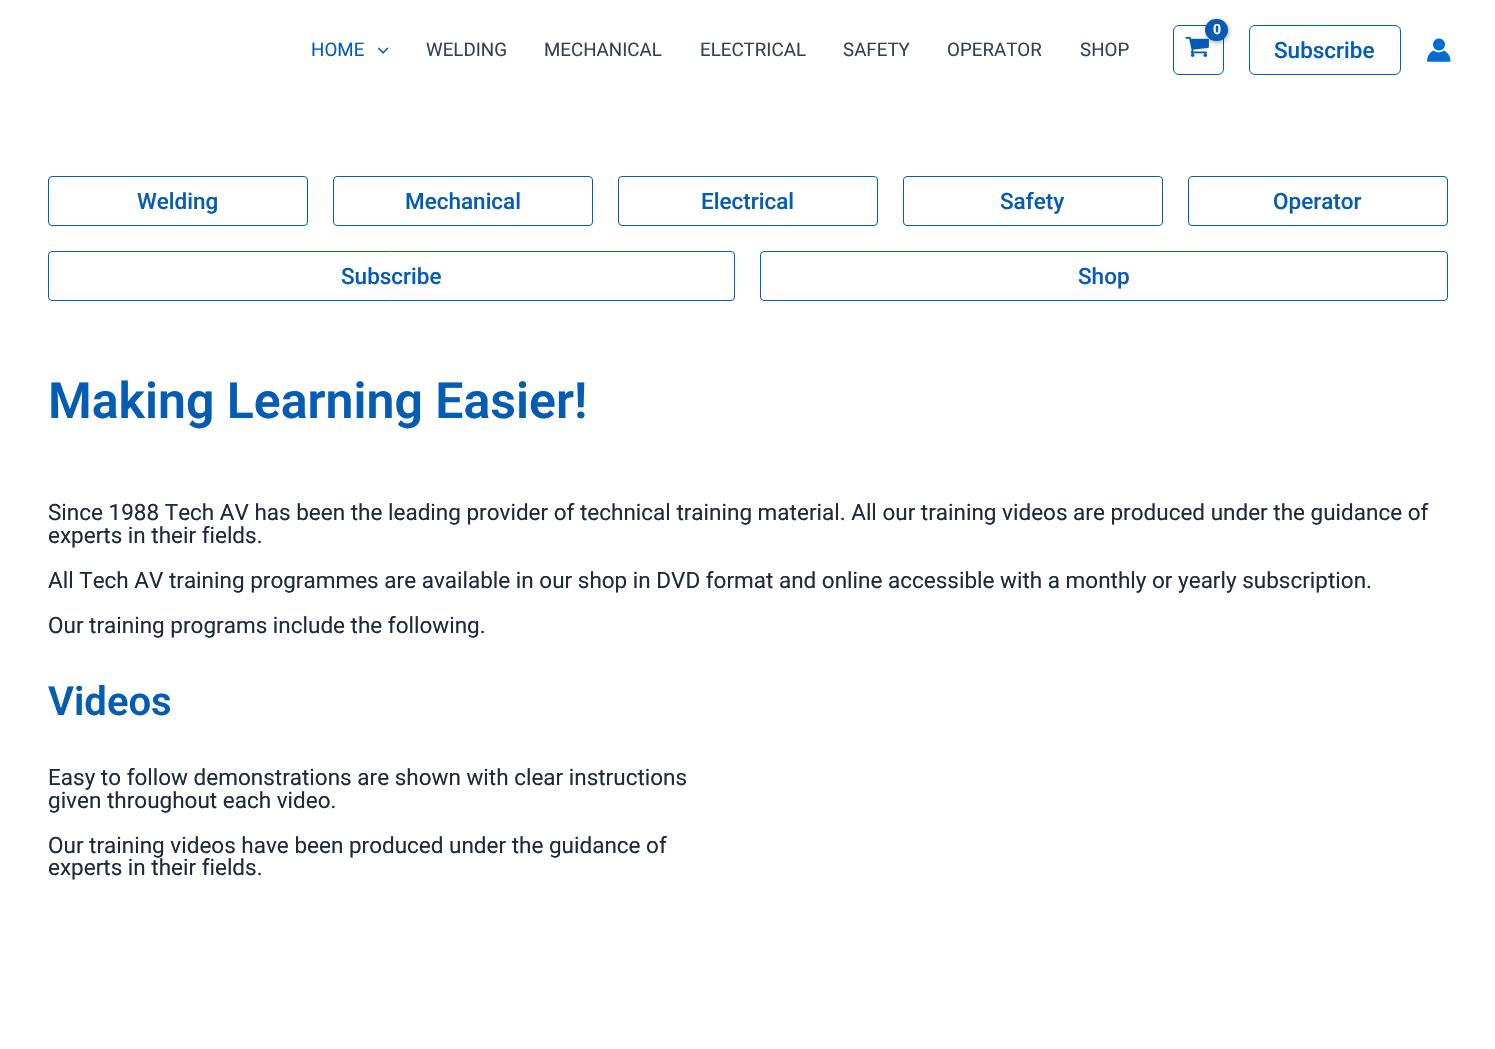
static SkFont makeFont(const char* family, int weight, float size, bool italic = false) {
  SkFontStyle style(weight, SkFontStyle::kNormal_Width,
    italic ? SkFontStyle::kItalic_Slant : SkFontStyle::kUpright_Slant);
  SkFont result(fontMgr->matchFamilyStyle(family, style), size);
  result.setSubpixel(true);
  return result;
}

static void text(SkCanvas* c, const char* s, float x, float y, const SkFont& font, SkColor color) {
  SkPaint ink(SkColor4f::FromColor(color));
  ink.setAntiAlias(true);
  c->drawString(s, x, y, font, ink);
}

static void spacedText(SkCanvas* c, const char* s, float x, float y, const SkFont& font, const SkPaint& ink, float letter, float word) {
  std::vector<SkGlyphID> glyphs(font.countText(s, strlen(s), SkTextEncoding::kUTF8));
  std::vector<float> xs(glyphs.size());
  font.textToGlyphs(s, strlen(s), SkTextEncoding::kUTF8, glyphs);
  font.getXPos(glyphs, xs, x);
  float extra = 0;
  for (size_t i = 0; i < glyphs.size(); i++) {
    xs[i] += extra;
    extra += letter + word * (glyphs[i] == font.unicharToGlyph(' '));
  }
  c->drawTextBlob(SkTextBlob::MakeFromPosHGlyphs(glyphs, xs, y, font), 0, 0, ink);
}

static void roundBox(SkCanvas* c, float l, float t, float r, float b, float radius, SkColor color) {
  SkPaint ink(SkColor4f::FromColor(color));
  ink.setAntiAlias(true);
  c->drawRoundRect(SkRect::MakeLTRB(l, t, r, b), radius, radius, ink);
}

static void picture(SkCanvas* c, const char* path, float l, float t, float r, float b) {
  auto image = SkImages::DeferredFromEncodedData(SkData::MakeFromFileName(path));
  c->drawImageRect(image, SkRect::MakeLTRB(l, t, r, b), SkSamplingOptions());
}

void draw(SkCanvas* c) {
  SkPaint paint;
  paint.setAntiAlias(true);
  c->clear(0xffffffff);
  paint.setStyle(SkPaint::kStroke_Style);
  paint.setStrokeWidth(1);
  paint.setColor(0xff045cb4);
  c->drawRoundRect(SkRect::MakeLTRB(1173.5f, 25.5f, 1223.5f, 74.5f), 5.5f, 5.5f, paint);
  picture(c, "img_01.png", 1185, 37, 1209, 57);
  paint.setStyle(SkPaint::kFill_Style);
  paint.setColor(0x4d000000);
  paint.setMaskFilter(SkMaskFilter::MakeBlur(kNormal_SkBlurStyle, 2));
  c->drawRoundRect(SkRect::MakeLTRB(1206, 20, 1229, 43), 11.5f, 11.5f, paint);
  paint.setMaskFilter(nullptr);
  roundBox(c, 1205, 19, 1228, 41, 11, 0xff045cb4);
  SkFont face1 = makeFont("Roboto", 700, 14);
  paint.setColor(0xffffffff);
  spacedText(c, "0", 1213, 34, face1, paint, -1, 0);
  SkFont face2 = makeFont("Roboto", 400, 18.75f);
  text(c, "HOME", 311, 56, face2, 0xff045cb4);
  picture(c, "img_02.png", 378, 47, 389, 54);
  text(c, "WELDING", 426, 56, face2, 0xff334155);
  text(c, "MECHANICAL", 544, 56, face2, 0xff334155);
  text(c, "ELECTRICAL", 700, 56, face2, 0xff334155);
  text(c, "SAFETY", 843, 56, face2, 0xff334155);
  text(c, "OPERATOR", 947, 56, face2, 0xff334155);
  text(c, "SHOP", 1080, 56, face2, 0xff334155);
  paint.setStyle(SkPaint::kStroke_Style);
  paint.setColor(0xff045cb4);
  c->drawRoundRect(SkRect::MakeLTRB(1249.5f, 25.5f, 1400.5f, 74.5f), 5.5f, 5.5f, paint);
  SkFont face3 = makeFont("Roboto", 500, 22.5f);
  text(c, "Subscribe", 1274, 58, face3, 0xff045cb4);
  picture(c, "img_03.png", 1427, 38, 1451, 62);
  c->drawRoundRect(SkRect::MakeLTRB(48.5f, 176.5f, 307.5f, 225.5f), 3.5f, 3.5f, paint);
  text(c, "Welding", 137, 209, face3, 0xff045cb4);
  c->drawRoundRect(SkRect::MakeLTRB(333.5f, 176.5f, 592.5f, 225.5f), 3.5f, 3.5f, paint);
  text(c, "Mechanical", 405, 209, face3, 0xff045cb4);
  c->drawRoundRect(SkRect::MakeLTRB(618.5f, 176.5f, 877.5f, 225.5f), 3.5f, 3.5f, paint);
  text(c, "Electrical", 701, 209, face3, 0xff045cb4);
  c->drawRoundRect(SkRect::MakeLTRB(903.5f, 176.5f, 1162.5f, 225.5f), 3.5f, 3.5f, paint);
  text(c, "Safety", 1000, 209, face3, 0xff045cb4);
  c->drawRoundRect(SkRect::MakeLTRB(1188.5f, 176.5f, 1447.5f, 225.5f), 3.5f, 3.5f, paint);
  text(c, "Operator", 1273, 209, face3, 0xff045cb4);
  c->drawRoundRect(SkRect::MakeLTRB(48.5f, 251.5f, 734.5f, 300.5f), 3.5f, 3.5f, paint);
  text(c, "Subscribe", 341, 284, face3, 0xff045cb4);
  c->drawRoundRect(SkRect::MakeLTRB(760.5f, 251.5f, 1447.5f, 300.5f), 3.5f, 3.5f, paint);
  text(c, "Shop", 1078, 284, face3, 0xff045cb4);
  SkFont face4 = makeFont("Roboto", 600, 50);
  text(c, "Making Learning Easier!", 48, 418, face4, 0xff045cb4);
  SkFont face5 = makeFont("Roboto", 400, 22.5f);
  text(c, "Since 1988 Tech AV has been the leading provider of technical training material. All our training videos are produced under the guidance of", 48, 520, face5, 0xff1e293b);
  text(c, "experts in their fields.", 48, 543, face5, 0xff1e293b);
  text(c, "All Tech AV training programmes are available in our shop in DVD format and online accessible with a monthly or yearly subscription.", 48, 588, face5, 0xff1e293b);
  text(c, "Our training programs include the following.", 48, 633, face5, 0xff1e293b);
  SkFont face6 = makeFont("Roboto", 600, 40);
  text(c, "Videos", 48, 715, face6, 0xff045cb4);
  text(c, "Easy to follow demonstrations are shown with clear instructions", 48, 785, face5, 0xff1e293b);
  text(c, "given throughout each video.", 48, 808, face5, 0xff1e293b);
  text(c, "Our training videos have been produced under the guidance of", 48, 853, face5, 0xff1e293b);
  text(c, "experts in their fields.", 48, 875, face5, 0xff1e293b);
}
